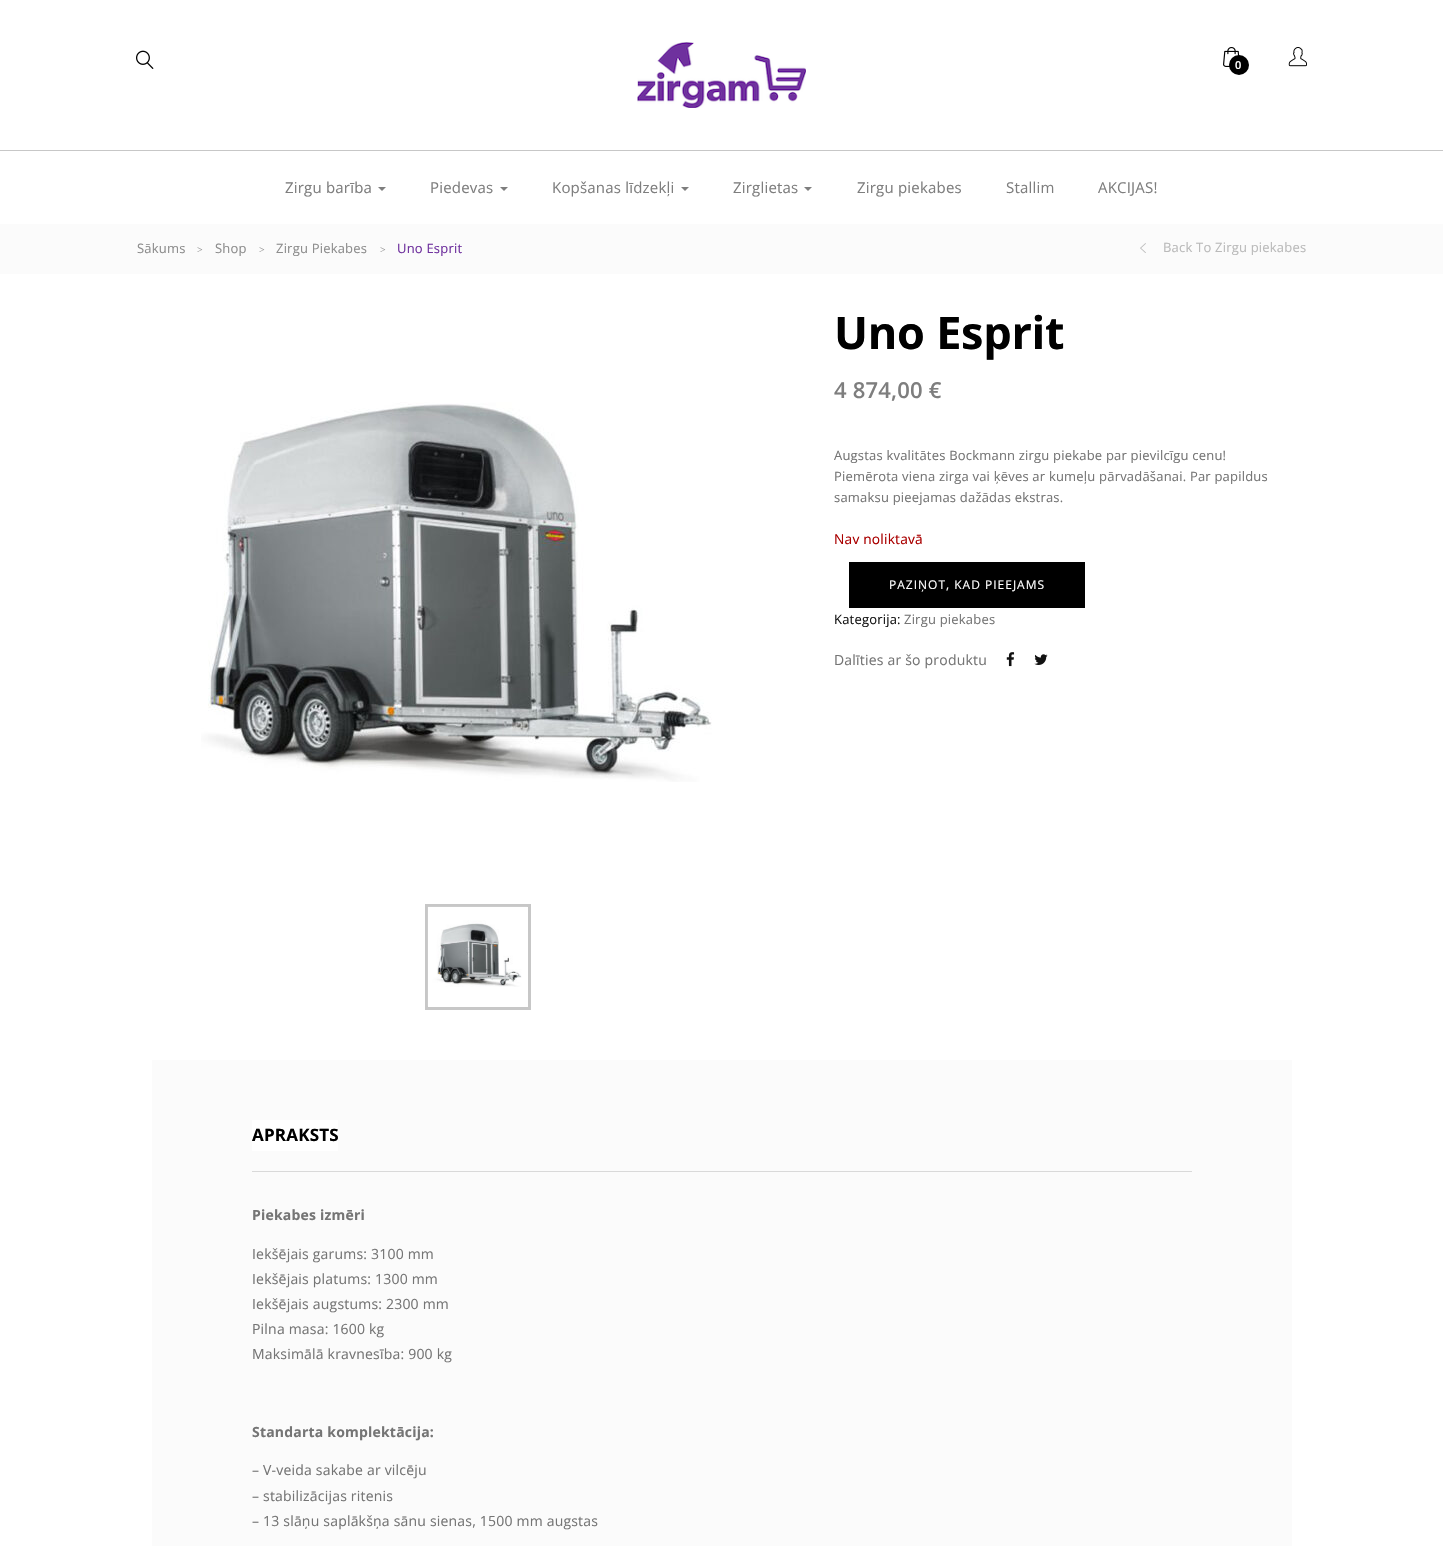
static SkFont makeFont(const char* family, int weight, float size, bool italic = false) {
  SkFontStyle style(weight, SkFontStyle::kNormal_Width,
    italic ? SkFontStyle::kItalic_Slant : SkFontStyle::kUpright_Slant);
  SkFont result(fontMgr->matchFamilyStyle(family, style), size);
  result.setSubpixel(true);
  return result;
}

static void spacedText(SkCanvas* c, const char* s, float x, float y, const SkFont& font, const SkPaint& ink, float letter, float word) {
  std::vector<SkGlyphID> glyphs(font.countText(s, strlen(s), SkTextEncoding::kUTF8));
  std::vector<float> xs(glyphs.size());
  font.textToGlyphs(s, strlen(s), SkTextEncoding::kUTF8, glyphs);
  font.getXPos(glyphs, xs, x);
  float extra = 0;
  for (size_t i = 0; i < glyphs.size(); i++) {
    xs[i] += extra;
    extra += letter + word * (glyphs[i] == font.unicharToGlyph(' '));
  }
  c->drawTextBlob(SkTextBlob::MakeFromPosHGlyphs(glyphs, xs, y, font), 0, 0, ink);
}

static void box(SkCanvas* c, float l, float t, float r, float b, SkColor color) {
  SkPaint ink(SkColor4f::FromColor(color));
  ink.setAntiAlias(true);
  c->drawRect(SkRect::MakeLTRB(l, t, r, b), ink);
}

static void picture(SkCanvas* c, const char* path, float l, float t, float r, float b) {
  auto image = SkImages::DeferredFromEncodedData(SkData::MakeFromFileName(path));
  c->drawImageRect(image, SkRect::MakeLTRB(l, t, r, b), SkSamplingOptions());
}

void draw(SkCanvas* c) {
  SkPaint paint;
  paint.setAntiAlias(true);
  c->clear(0xffffffff);
  box(c, 0, 150, 1443, 151, 0xffc7c7c7);
  picture(c, "img_01.png", 136, 50, 154, 69);
  picture(c, "img_02.png", 637, 42, 806, 108);
  picture(c, "img_03.png", 1223, 47, 1240, 67);
  paint.setColor(0xff000000);
  c->drawCircle(1239, 65, 10, paint);
  SkFont face1 = makeFont("Open Sans", 600, 11);
  paint.setColor(0xffffffff);
  spacedText(c, "0", 1235, 69, face1, paint, 0.2f, 0);
  picture(c, "img_04.png", 1288, 47, 1307, 67);
  SkFont face2 = makeFont("Open Sans", 400, 15);
  paint.setColor(0xff7e7e7e);
  spacedText(c, "Zirgu barība", 285, 193, face2, paint, 0.2f, 0);
  c->drawPath(SkPathBuilder().moveTo(378, 187).lineTo(386, 187).lineTo(382, 191).close().detach(), paint);
  spacedText(c, "Piedevas", 430, 193, face2, paint, 0.2f, 0);
  c->drawPath(SkPathBuilder().moveTo(500, 187).lineTo(508, 187).lineTo(504, 191).close().detach(), paint);
  spacedText(c, "Kopšanas līdzekļi", 552, 193, face2, paint, 0.2f, 0);
  c->drawPath(SkPathBuilder().moveTo(681, 187).lineTo(689, 187).lineTo(685, 191).close().detach(), paint);
  spacedText(c, "Zirglietas", 733, 193, face2, paint, 0.2f, 0);
  c->drawPath(SkPathBuilder().moveTo(804, 187).lineTo(812, 187).lineTo(808, 191).close().detach(), paint);
  spacedText(c, "Zirgu piekabes", 857, 193, face2, paint, 0.2f, 0);
  spacedText(c, "Stallim", 1006, 193, face2, paint, 0.2f, 0);
  spacedText(c, "AKCIJAS!", 1098, 193, face2, paint, 0.2f, 0);
  box(c, 0, 224, 1443, 274, 0xfffbfbfb);
  SkFont face3 = makeFont("Open Sans", 400, 13);
  paint.setColor(0xff8d8d8d);
  spacedText(c, "Sākums", 137, 253, face3, paint, 0.2f, 0);
  SkFont face4 = makeFont("Liberation Serif", 400, 10);
  spacedText(c, ">", 197, 253, face4, paint, 0.2f, 0);
  spacedText(c, "Shop", 215, 253, face3, paint, 0.2f, 0);
  spacedText(c, ">", 259, 253, face4, paint, 0.2f, 0);
  spacedText(c, "Zirgu Piekabes", 276, 253, face3, paint, 0.2f, 0);
  spacedText(c, ">", 380, 253, face4, paint, 0.2f, 0);
  paint.setColor(0xff6f319e);
  spacedText(c, "Uno Esprit", 397, 253, face3, paint, 0.2f, 0);
  picture(c, "img_05.png", 1140, 243, 1146, 253);
  paint.setColor(0xffbababa);
  spacedText(c, "Back To Zirgu piekabes", 1163, 252, face3, paint, 0.2f, 0);
  picture(c, "img_06.png", 201, 402, 712, 782);
  paint.setStyle(SkPaint::kStroke_Style);
  paint.setStrokeWidth(3);
  paint.setColor(0xffc7c7c7);
  c->drawRect(SkRect::MakeLTRB(426.5f, 905.5f, 529.5f, 1008.5f), paint);
  picture(c, "img_07.png", 427, 906, 527, 1006);
  SkFont face5 = makeFont("Open Sans", 700, 45);
  paint.setStyle(SkPaint::kFill_Style);
  paint.setColor(0xff000000);
  spacedText(c, "Uno Esprit", 834, 349, face5, paint, -0.25f, 0);
  SkFont face6 = makeFont("Open Sans", 600, 22);
  paint.setColor(0xff7e7e7e);
  spacedText(c, "4 874,00 €", 834, 398, face6, paint, 0.2f, 0);
  paint.setColor(0xff757575);
  spacedText(c, "Augstas kvalitātes Bockmann zirgu piekabe par pievilcīgu cenu!", 834, 460, face3, paint, 0.2f, 0);
  spacedText(c, "Piemērota viena zirga vai ķēves ar kumeļu pārvadāšanai. Par papildus", 834, 481, face3, paint, 0.2f, 0);
  spacedText(c, "samaksu pieejamas dažādas ekstras.", 834, 502, face3, paint, 0.2f, 0);
  SkFont face7 = makeFont("Open Sans", 400, 13.75f);
  paint.setColor(0xffaa0000);
  spacedText(c, "Nav noliktavā", 834, 544, face7, paint, 0.2f, 0);
  box(c, 849, 562, 1085, 608, 0xff000000);
  SkFont face8 = makeFont("Open Sans", 400, 12);
  paint.setColor(0xffffffff);
  spacedText(c, "PAZIŅOT, KAD PIEEJAMS", 889, 589, face8, paint, 1, 0);
  paint.setColor(0xff171717);
  spacedText(c, "Kategorija:", 834, 624, face3, paint, 0.2f, 0);
  paint.setColor(0xff757575);
  spacedText(c, "Zirgu piekabes", 904, 624, face3, paint, 0.2f, 0);
  SkFont face9 = makeFont("Open Sans", 400, 14);
  spacedText(c, "Dalīties ar šo produktu", 834, 665, face9, paint, 0.2f, 0);
  picture(c, "img_08.png", 1006, 652, 1015, 667);
  picture(c, "img_09.png", 1034, 654, 1048, 665);
  box(c, 152, 1060, 1292, 1546, 0xfffbfbfb);
  box(c, 252, 1171, 1192, 1172, 0xffd9d9d9);
  box(c, 252, 1120, 338, 1151, 0xffffffff);
  SkFont face10 = makeFont("Open Sans", 700, 17);
  paint.setColor(0xff000000);
  spacedText(c, "APRAKSTS", 252, 1141, face10, paint, 0.2f, 0);
  SkFont face11 = makeFont("Open Sans", 700, 14);
  paint.setColor(0xff757575);
  spacedText(c, "Piekabes izmēri", 252, 1220, face11, paint, 0.2f, 0);
  spacedText(c, "Iekšējais garums: 3100 mm", 252, 1259, face9, paint, 0.2f, 0);
  spacedText(c, "Iekšējais platums: 1300 mm", 252, 1284, face9, paint, 0.2f, 0);
  spacedText(c, "Iekšējais augstums: 2300 mm", 252, 1309, face9, paint, 0.2f, 0);
  spacedText(c, "Pilna masa: 1600 kg", 252, 1334, face9, paint, 0.2f, 0);
  spacedText(c, "Maksimālā kravnesība: 900 kg", 252, 1359, face9, paint, 0.2f, 0);
  spacedText(c, "Standarta komplektācija:", 252, 1437, face11, paint, 0.2f, 0);
  spacedText(c, "– V-veida sakabe ar vilcēju", 252, 1475, face9, paint, 0.2f, 0);
  spacedText(c, "– stabilizācijas ritenis", 252, 1501, face9, paint, 0.2f, 0);
  spacedText(c, "– 13 slāņu saplākšņa sānu sienas, 1500 mm augstas", 252, 1526, face9, paint, 0.2f, 0);
}
